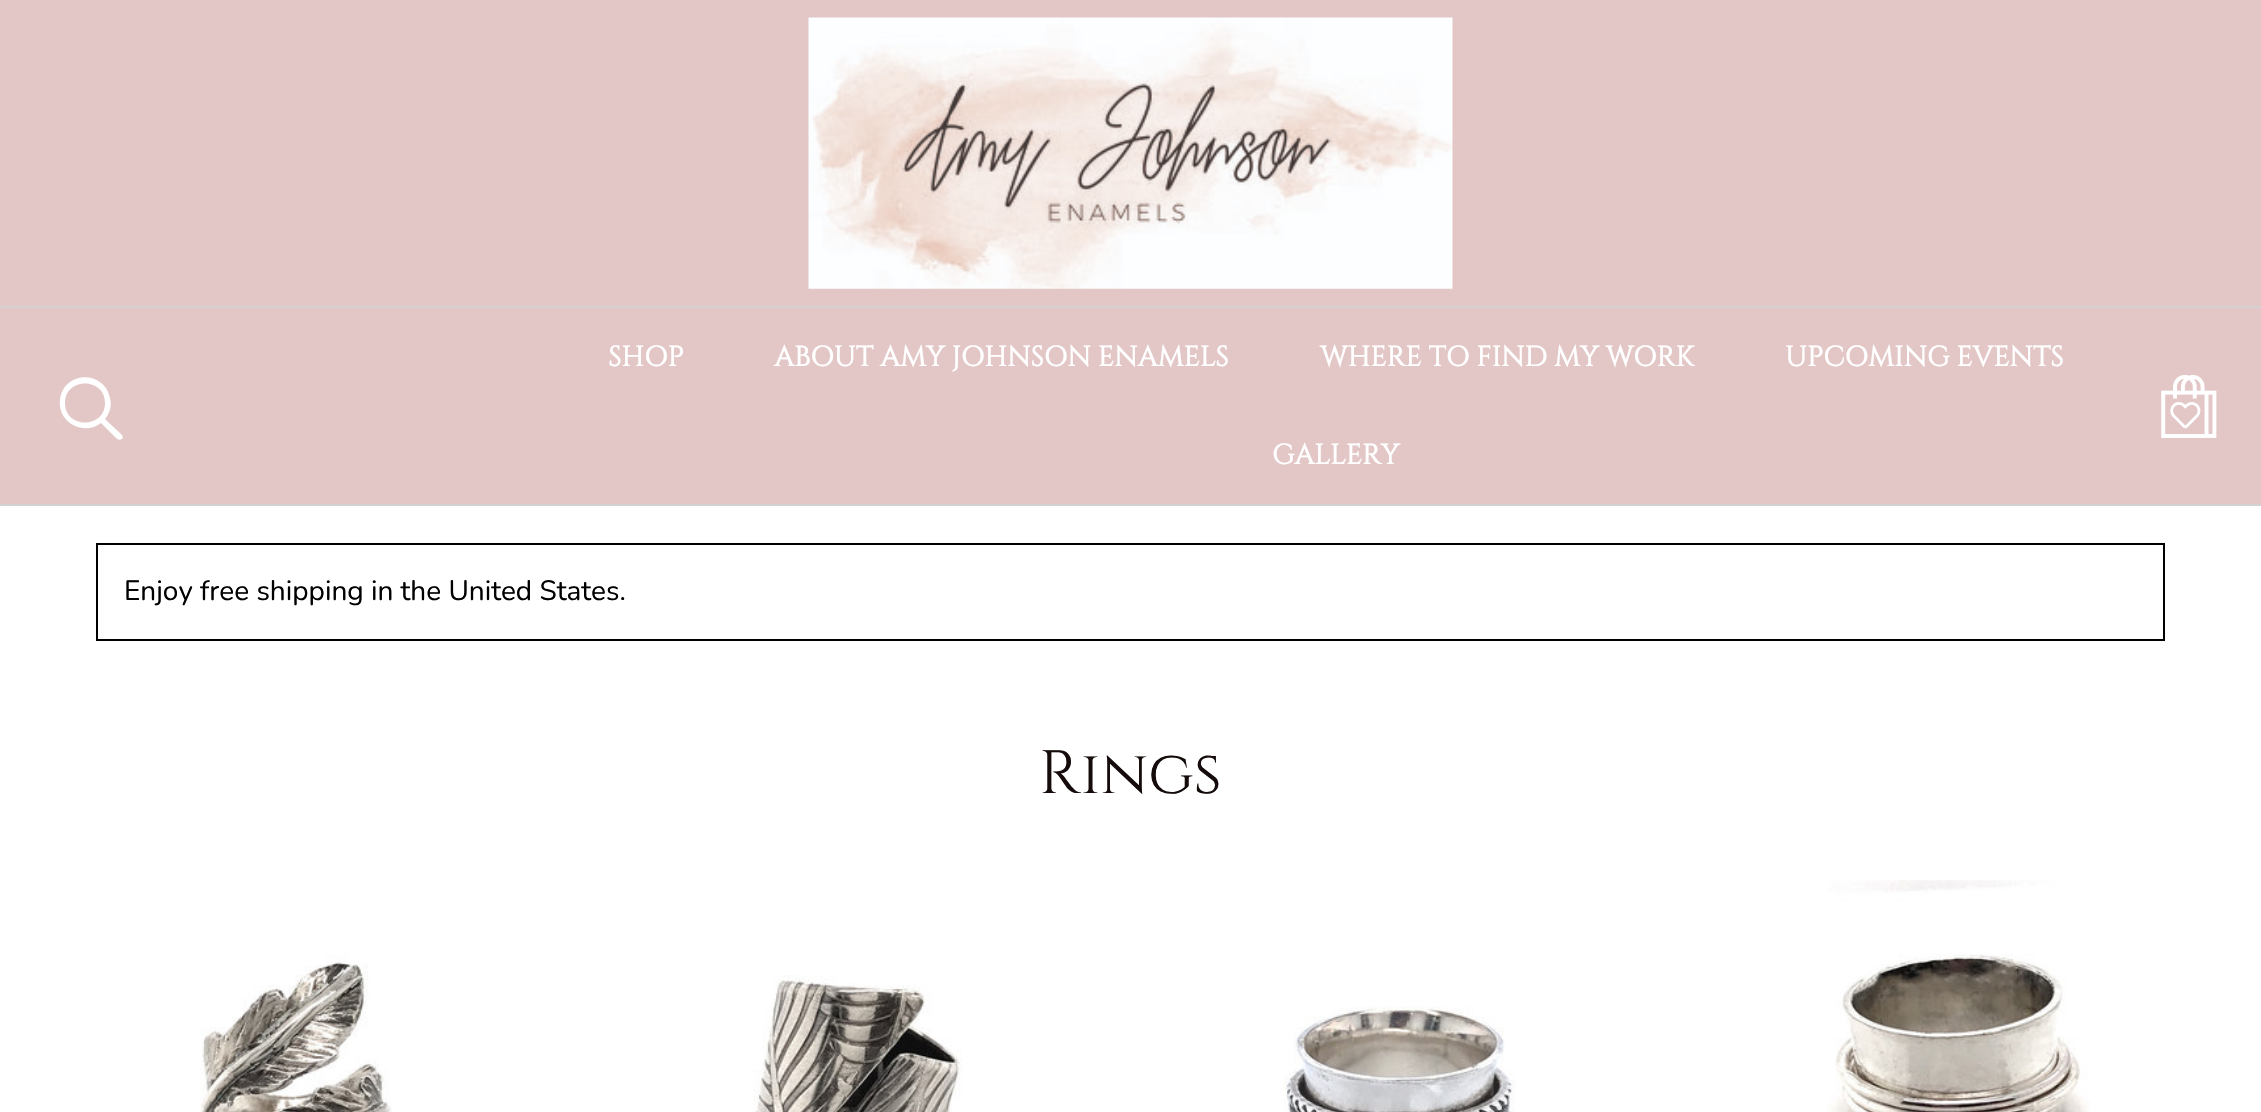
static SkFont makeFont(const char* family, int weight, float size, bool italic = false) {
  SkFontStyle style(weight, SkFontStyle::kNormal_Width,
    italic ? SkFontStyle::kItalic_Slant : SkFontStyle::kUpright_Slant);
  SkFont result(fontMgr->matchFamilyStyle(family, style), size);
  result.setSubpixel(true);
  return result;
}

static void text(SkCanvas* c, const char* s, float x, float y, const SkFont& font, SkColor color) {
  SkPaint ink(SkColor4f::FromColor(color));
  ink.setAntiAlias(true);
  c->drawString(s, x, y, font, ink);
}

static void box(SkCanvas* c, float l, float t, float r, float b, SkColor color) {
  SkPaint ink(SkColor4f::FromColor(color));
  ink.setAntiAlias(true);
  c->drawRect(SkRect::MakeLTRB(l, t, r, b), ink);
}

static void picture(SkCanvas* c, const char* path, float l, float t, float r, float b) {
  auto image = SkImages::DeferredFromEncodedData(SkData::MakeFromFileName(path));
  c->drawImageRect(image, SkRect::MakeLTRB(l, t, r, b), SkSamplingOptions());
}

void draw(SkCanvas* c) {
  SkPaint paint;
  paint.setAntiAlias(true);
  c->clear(0xffffffff);
  box(c, 0, 0, 2261, 504, 0xffe3c6c6);
  box(c, 0, 504, 2261, 506, 0xffd3d1d2);
  box(c, 0, 306, 2261, 308, 0xffd3d1d2);
  picture(c, "img_01.png", 808, 17, 1453, 289);
  paint.setColor(0xffffffff);
  c->drawPath(SkPathBuilder().moveTo(105, 403).cubicTo(105, 377, 65, 377, 65, 403).cubicTo(65, 429, 105, 429, 105, 403).close().moveTo(101, 423).cubicTo(90, 432, 72, 429, 64, 417).cubicTo(61, 412, 59, 406, 60, 400).cubicTo(63, 371, 104, 369, 110, 398).cubicTo(112, 405, 110, 413, 105, 419).lineTo(122, 435).cubicTo(123, 436, 123, 438, 122, 439).cubicTo(120, 440, 119, 440, 117, 439).close().detach(), paint);
  SkFont face1 = makeFont("Cinzel", 700, 28);
  text(c, "SHOP", 608, 366, face1, 0xffffffff);
  text(c, "ABOUT AMY JOHNSON ENAMELS", 774, 366, face1, 0xffffffff);
  text(c, "WHERE TO FIND MY WORK", 1320, 366, face1, 0xffffffff);
  text(c, "UPCOMING EVENTS", 1785, 366, face1, 0xffffffff);
  text(c, "GALLERY", 1272, 464, face1, 0xffffffff);
  picture(c, "img_02.png", 2161, 375, 2217, 438);
  paint.setStyle(SkPaint::kStroke_Style);
  paint.setStrokeWidth(2);
  paint.setColor(0xff000000);
  c->drawRect(SkRect::MakeLTRB(97, 544, 2164, 640), paint);
  SkFont face2 = makeFont("Nunito", 400, 28);
  text(c, "Enjoy free shipping in the United States.", 124, 600, face2, 0xff000000);
  SkFont face3 = makeFont("Cinzel", 400, 61);
  text(c, "Rings", 1039, 793, face3, 0xff150b0b);
  picture(c, "img_03.png", 200, 954, 392, 1112);
  picture(c, "img_04.png", 753, 975, 963, 1112);
  picture(c, "img_05.png", 1283, 1006, 1515, 1112);
  picture(c, "img_06.png", 1827, 880, 2091, 1112);
}
